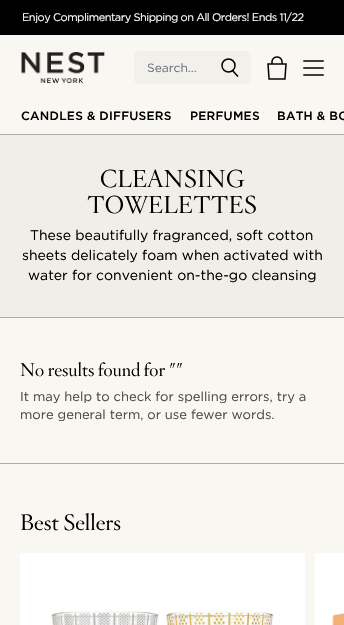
static SkFont makeFont(const char* family, int weight, float size, bool italic = false) {
  SkFontStyle style(weight, SkFontStyle::kNormal_Width,
    italic ? SkFontStyle::kItalic_Slant : SkFontStyle::kUpright_Slant);
  SkFont result(fontMgr->matchFamilyStyle(family, style), size);
  result.setSubpixel(true);
  return result;
}

static void text(SkCanvas* c, const char* s, float x, float y, const SkFont& font, SkColor color) {
  SkPaint ink(SkColor4f::FromColor(color));
  ink.setAntiAlias(true);
  c->drawString(s, x, y, font, ink);
}

static void spacedText(SkCanvas* c, const char* s, float x, float y, const SkFont& font, const SkPaint& ink, float letter, float word) {
  std::vector<SkGlyphID> glyphs(font.countText(s, strlen(s), SkTextEncoding::kUTF8));
  std::vector<float> xs(glyphs.size());
  font.textToGlyphs(s, strlen(s), SkTextEncoding::kUTF8, glyphs);
  font.getXPos(glyphs, xs, x);
  float extra = 0;
  for (size_t i = 0; i < glyphs.size(); i++) {
    xs[i] += extra;
    extra += letter + word * (glyphs[i] == font.unicharToGlyph(' '));
  }
  c->drawTextBlob(SkTextBlob::MakeFromPosHGlyphs(glyphs, xs, y, font), 0, 0, ink);
}

static void box(SkCanvas* c, float l, float t, float r, float b, SkColor color) {
  SkPaint ink(SkColor4f::FromColor(color));
  ink.setAntiAlias(true);
  c->drawRect(SkRect::MakeLTRB(l, t, r, b), ink);
}

static void roundBox(SkCanvas* c, float l, float t, float r, float b, float radius, SkColor color) {
  SkPaint ink(SkColor4f::FromColor(color));
  ink.setAntiAlias(true);
  c->drawRoundRect(SkRect::MakeLTRB(l, t, r, b), radius, radius, ink);
}

static void picture(SkCanvas* c, const char* path, float l, float t, float r, float b) {
  auto image = SkImages::DeferredFromEncodedData(SkData::MakeFromFileName(path));
  c->drawImageRect(image, SkRect::MakeLTRB(l, t, r, b), SkSamplingOptions());
}

void draw(SkCanvas* c) {
  SkPaint paint;
  paint.setAntiAlias(true);
  c->clear(0xfff9f7f2);
  box(c, 0, 0, 344, 35, 0xff000000);
  SkFont face1 = makeFont("Gotham", 400, 11);
  paint.setColor(0xffffffff);
  spacedText(c, "Enjoy Complimentary Shipping on All Orders! Ends 11/22", 22, 21, face1, paint, -0.5f, 0);
  picture(c, "img_01.png", 21, 52, 105, 84);
  roundBox(c, 134, 51, 251, 84, 5, 0xfff2f0ea);
  SkFont face2 = makeFont("Gotham", 400, 12);
  text(c, "Search...", 147, 72, face2, 0xff6b7280);
  paint.setStyle(SkPaint::kStroke_Style);
  paint.setStrokeWidth(1.5f);
  paint.setColor(0xff000000);
  c->drawCircle(228.5f, 65.5f, 6.5f, paint);
  c->drawPath(SkPathBuilder().moveTo(232.5f, 70.5f).lineTo(238, 76.5f).detach(), paint);
  picture(c, "img_02.png", 267, 56, 287, 80);
  paint.setStrokeCap(SkPaint::kSquare_Cap);
  c->drawPath(SkPathBuilder().moveTo(304, 61).lineTo(323, 61).moveTo(304, 68).lineTo(323, 68).moveTo(304, 75).lineTo(323, 75).detach(), paint);
  box(c, 0, 134, 344, 135, 0xffaeada9);
  SkFont face3 = makeFont("Gotham", 500, 12);
  paint.setStyle(SkPaint::kFill_Style);
  spacedText(c, "CANDLES & DIFFUSERS", 21, 120, face3, paint, 0.25f, 0);
  spacedText(c, "PERFUMES", 190, 120, face3, paint, 0.25f, 0);
  spacedText(c, "BATH & BO", 277, 120, face3, paint, 0.25f, 0);
  box(c, 0, 135, 344, 317, 0xfff1eee7);
  SkFont face4 = makeFont("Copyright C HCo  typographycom", 300, 24);
  text(c, "CLEANSING", 100, 187, face4, 0xff000000);
  text(c, "TOWELETTES", 87, 213, face4, 0xff000000);
  SkFont face5 = makeFont("Gotham", 400, 14);
  text(c, "These beautifully fragranced, soft cotton", 30, 240, face5, 0xff000000);
  text(c, "sheets delicately foam when activated with", 22, 260, face5, 0xff000000);
  text(c, "water for convenient on-the-go cleansing", 28, 280, face5, 0xff000000);
  box(c, 0, 317, 344, 318, 0xffaeada9);
  box(c, 0, 463, 344, 464, 0xffaeada9);
  SkFont face6 = makeFont("Copyright C HCo  typographycom", 300, 18);
  text(c, "No results found for \"\"", 20, 376, face6, 0xff000000);
  SkFont face7 = makeFont("Gotham", 400, 13);
  text(c, "It may help to check for spelling errors, try a", 20, 401, face7, 0xff4b4a49);
  text(c, "more general term, or use fewer words.", 20, 419, face7, 0xff4b4a49);
  SkFont face8 = makeFont("Copyright C HCo  typographycom", 300, 22);
  text(c, "Best Sellers", 20, 530, face8, 0xff000000);
  picture(c, "img_03.png", 20, 553, 305, 625);
  picture(c, "img_04.png", 315, 553, 344, 625);
}
